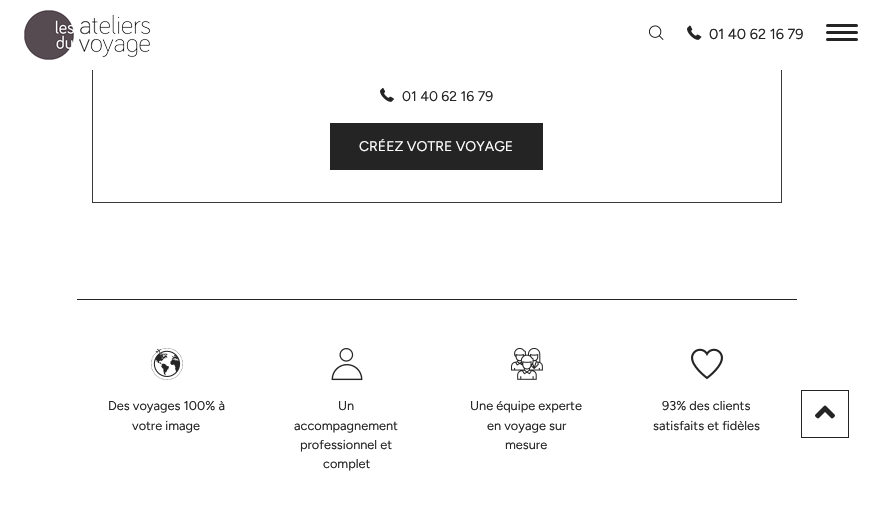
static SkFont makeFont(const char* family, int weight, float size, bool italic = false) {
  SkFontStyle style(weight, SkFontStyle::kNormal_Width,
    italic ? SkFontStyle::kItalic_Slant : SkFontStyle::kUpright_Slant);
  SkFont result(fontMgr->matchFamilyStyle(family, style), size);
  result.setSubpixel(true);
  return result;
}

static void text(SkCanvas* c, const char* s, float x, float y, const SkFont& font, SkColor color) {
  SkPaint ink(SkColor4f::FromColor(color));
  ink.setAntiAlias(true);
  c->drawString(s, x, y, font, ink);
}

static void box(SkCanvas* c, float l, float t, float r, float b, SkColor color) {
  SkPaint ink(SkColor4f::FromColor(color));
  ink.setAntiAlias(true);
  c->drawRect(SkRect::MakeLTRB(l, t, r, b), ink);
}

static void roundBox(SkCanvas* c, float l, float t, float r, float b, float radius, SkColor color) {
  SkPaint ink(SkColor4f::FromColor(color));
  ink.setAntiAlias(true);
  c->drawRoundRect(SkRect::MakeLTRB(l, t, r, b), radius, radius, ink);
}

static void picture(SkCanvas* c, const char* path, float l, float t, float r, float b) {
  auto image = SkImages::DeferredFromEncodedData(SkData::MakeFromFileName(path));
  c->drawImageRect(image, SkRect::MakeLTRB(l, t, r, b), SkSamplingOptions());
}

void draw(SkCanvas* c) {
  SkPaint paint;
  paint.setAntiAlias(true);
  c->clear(0xffffffff);
  paint.setStyle(SkPaint::kStroke_Style);
  paint.setStrokeWidth(1);
  paint.setColor(0xff393939);
  c->drawRect(SkRect::MakeLTRB(92.5f, -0.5f, 781.5f, 202.5f), paint);
  box(c, 92, 0, 782, 70, 0xffffffff);
  picture(c, "img_01.png", 24, 10, 151, 60);
  picture(c, "img_02.png", 649, 25, 664, 40);
  picture(c, "img_03.png", 687, 25, 702, 40);
  SkFont face1 = makeFont("Figtree", 400, 14.5f);
  text(c, "01 40 62 16 79", 709, 39, face1, 0xff242424);
  roundBox(c, 826, 31, 858, 34, 1.5f, 0xff242424);
  roundBox(c, 826, 24, 858, 27, 1.5f, 0xff242424);
  roundBox(c, 826, 38, 858, 41, 1.5f, 0xff242424);
  picture(c, "img_04.png", 380, 87, 394, 102);
  SkFont face2 = makeFont("Figtree", 400, 14);
  text(c, "01 40 62 16 79", 402, 101, face2, 0xff242424);
  box(c, 330, 123, 543, 170, 0xff242424);
  text(c, "CRÉEZ VOTRE VOYAGE", 359, 151, face2, 0xffffffff);
  box(c, 77, 299, 797, 300, 0xff242424);
  picture(c, "img_05.png", 151, 348, 183, 380);
  SkFont face3 = makeFont("Figtree", 400, 12.75f);
  text(c, "Des voyages 100% à", 108, 410, face3, 0xff242424);
  text(c, "votre image", 132, 430, face3, 0xff242424);
  picture(c, "img_06.png", 331, 348, 363, 381);
  text(c, "Un", 338, 410, face3, 0xff242424);
  text(c, "accompagnement", 294, 430, face3, 0xff242424);
  text(c, "professionnel et", 300, 449, face3, 0xff242424);
  text(c, "complet", 323, 468, face3, 0xff242424);
  picture(c, "img_07.png", 511, 347, 543, 380);
  text(c, "Une équipe experte", 470, 410, face3, 0xff242424);
  text(c, "en voyage sur", 487, 430, face3, 0xff242424);
  text(c, "mesure", 505, 449, face3, 0xff242424);
  picture(c, "img_08.png", 691, 348, 723, 380);
  text(c, "93% des clients", 662, 410, face3, 0xff242424);
  text(c, "satisfaits et fidèles", 653, 430, face3, 0xff242424);
  paint.setColor(0xff242424);
  c->drawRect(SkRect::MakeLTRB(801.5f, 390.5f, 848.5f, 437.5f), paint);
  picture(c, "img_09.png", 815, 405, 835, 419);
}
